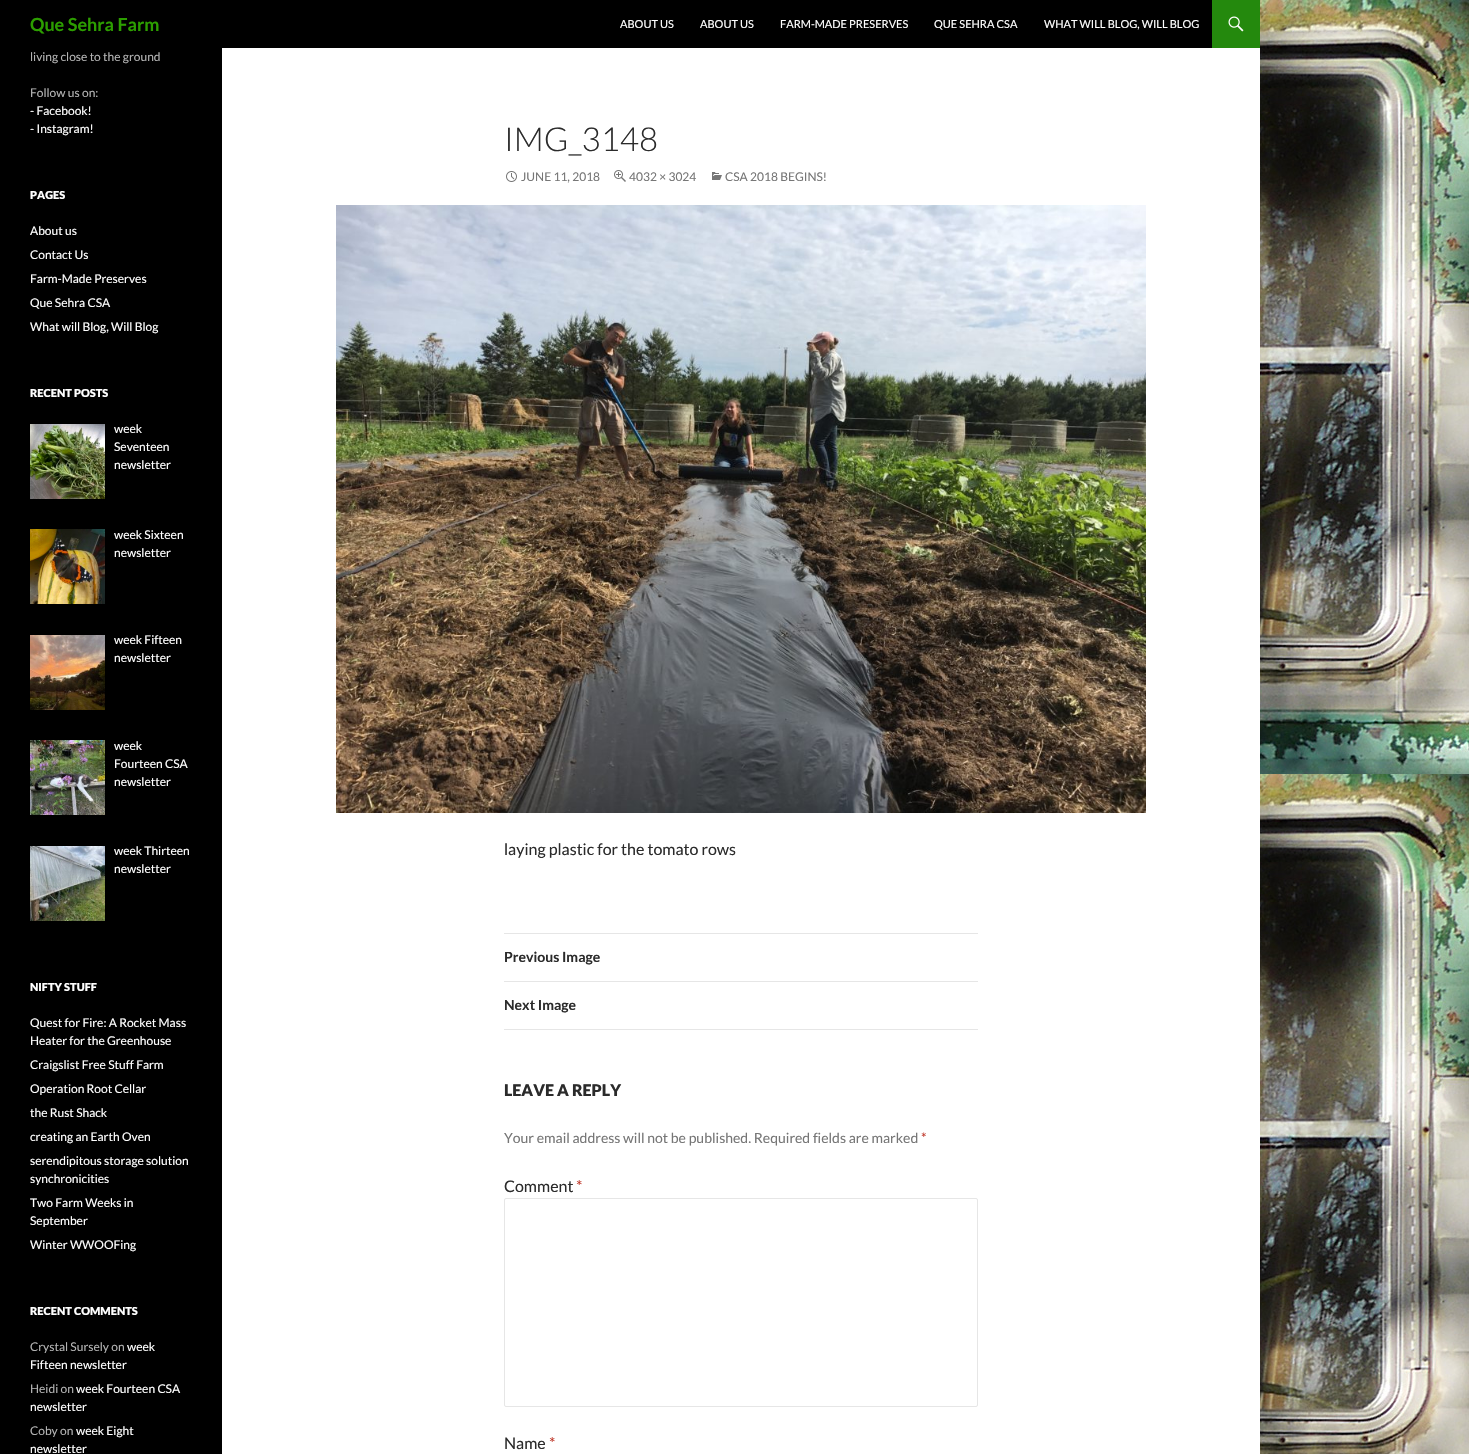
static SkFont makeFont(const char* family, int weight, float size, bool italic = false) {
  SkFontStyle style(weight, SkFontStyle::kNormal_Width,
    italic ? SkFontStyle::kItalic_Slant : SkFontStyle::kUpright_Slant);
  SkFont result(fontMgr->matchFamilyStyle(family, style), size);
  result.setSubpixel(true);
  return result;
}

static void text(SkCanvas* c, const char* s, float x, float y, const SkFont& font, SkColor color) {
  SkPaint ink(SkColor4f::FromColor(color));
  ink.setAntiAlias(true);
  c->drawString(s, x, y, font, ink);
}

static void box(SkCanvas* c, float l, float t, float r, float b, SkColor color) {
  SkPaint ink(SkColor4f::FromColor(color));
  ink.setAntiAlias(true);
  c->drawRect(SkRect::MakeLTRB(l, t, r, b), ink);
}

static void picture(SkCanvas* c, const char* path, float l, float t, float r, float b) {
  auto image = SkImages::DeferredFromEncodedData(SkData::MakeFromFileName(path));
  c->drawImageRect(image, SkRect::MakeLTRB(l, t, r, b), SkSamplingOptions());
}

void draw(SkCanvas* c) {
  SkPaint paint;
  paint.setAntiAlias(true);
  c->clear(0xffffffff);
  picture(c, "img_01.png", 1260, 0, 1469, 1454);
  box(c, 0, 0, 1212, 48, 0xff000000);
  SkFont face1 = makeFont("Lato", 700, 18);
  text(c, "Que Sehra Farm", 30, 31, face1, 0xff2c9e00);
  SkFont face2 = makeFont("Lato", 400, 11);
  text(c, "ABOUT US", 620, 28, face2, 0xffffffff);
  text(c, "ABOUT US", 700, 28, face2, 0xffffffff);
  text(c, "FARM-MADE PRESERVES", 780, 28, face2, 0xffffffff);
  text(c, "QUE SEHRA CSA", 934, 28, face2, 0xffffffff);
  text(c, "WHAT WILL BLOG, WILL BLOG", 1044, 28, face2, 0xffffffff);
  box(c, 1212, 0, 1260, 48, 0xff24890d);
  picture(c, "img_02.png", 1228, 16, 1244, 32);
  box(c, 0, 48, 222, 1454, 0xff000000);
  SkFont face3 = makeFont("Lato", 400, 12);
  text(c, "living close to the ground", 30, 61, face3, 0xffb3b3b3);
  text(c, "Follow us on:", 30, 97, face3, 0xffb3b3b3);
  text(c, "- Facebook!", 30, 115, face3, 0xffffffff);
  text(c, "- Instagram!", 30, 133, face3, 0xffffffff);
  SkFont face4 = makeFont("Lato", 900, 11);
  text(c, "PAGES", 30, 199, face4, 0xffffffff);
  text(c, "About us", 30, 235, face3, 0xffffffff);
  text(c, "Contact Us", 30, 259, face3, 0xffffffff);
  text(c, "Farm-Made Preserves", 30, 283, face3, 0xffffffff);
  text(c, "Que Sehra CSA", 30, 307, face3, 0xffffffff);
  text(c, "What will Blog, Will Blog", 30, 331, face3, 0xffffffff);
  text(c, "RECENT POSTS", 30, 397, face4, 0xffffffff);
  picture(c, "img_03.png", 30, 424, 105, 499);
  text(c, "week", 114, 433, face3, 0xffffffff);
  text(c, "Seventeen", 114, 451, face3, 0xffffffff);
  text(c, "newsletter", 114, 469, face3, 0xffffffff);
  picture(c, "img_04.png", 30, 529, 105, 604);
  text(c, "week Sixteen", 114, 539, face3, 0xffffffff);
  text(c, "newsletter", 114, 557, face3, 0xffffffff);
  picture(c, "img_05.png", 30, 635, 105, 710);
  text(c, "week Fifteen", 114, 644, face3, 0xffffffff);
  text(c, "newsletter", 114, 662, face3, 0xffffffff);
  picture(c, "img_06.png", 30, 740, 105, 815);
  text(c, "week", 114, 750, face3, 0xffffffff);
  text(c, "Fourteen CSA", 114, 768, face3, 0xffffffff);
  text(c, "newsletter", 114, 786, face3, 0xffffffff);
  picture(c, "img_07.png", 30, 846, 105, 921);
  text(c, "week Thirteen", 114, 855, face3, 0xffffffff);
  text(c, "newsletter", 114, 873, face3, 0xffffffff);
  text(c, "NIFTY STUFF", 30, 991, face4, 0xffffffff);
  text(c, "Quest for Fire: A Rocket Mass", 30, 1027, face3, 0xffffffff);
  text(c, "Heater for the Greenhouse", 30, 1045, face3, 0xffffffff);
  text(c, "Craigslist Free Stuff Farm", 30, 1069, face3, 0xffffffff);
  text(c, "Operation Root Cellar", 30, 1093, face3, 0xffffffff);
  text(c, "the Rust Shack", 30, 1117, face3, 0xffffffff);
  text(c, "creating an Earth Oven", 30, 1141, face3, 0xffffffff);
  text(c, "serendipitous storage solution", 30, 1165, face3, 0xffffffff);
  text(c, "synchronicities", 30, 1183, face3, 0xffffffff);
  text(c, "Two Farm Weeks in", 30, 1207, face3, 0xffffffff);
  text(c, "September", 30, 1225, face3, 0xffffffff);
  text(c, "Winter WWOOFing", 30, 1249, face3, 0xffffffff);
  text(c, "RECENT COMMENTS", 30, 1315, face4, 0xffffffff);
  text(c, "Crystal Sursely on", 30, 1351, face3, 0xffb3b3b3);
  text(c, "week", 127, 1351, face3, 0xffffffff);
  text(c, "Fifteen newsletter", 30, 1369, face3, 0xffffffff);
  text(c, "Heidi on", 30, 1393, face3, 0xffb3b3b3);
  text(c, "week Fourteen CSA", 76, 1393, face3, 0xffffffff);
  text(c, "newsletter", 30, 1411, face3, 0xffffffff);
  text(c, "Coby on", 30, 1435, face3, 0xffb3b3b3);
  text(c, "week Eight", 76, 1435, face3, 0xffffffff);
  text(c, "newsletter", 30, 1453, face3, 0xffffffff);
  SkFont face5 = makeFont("Lato", 300, 33);
  text(c, "IMG_3148", 504, 151, face5, 0xff2b2b2b);
  picture(c, "img_08.png", 506, 171, 517, 182);
  text(c, "JUNE 11, 2018", 521, 181, face3, 0xff767676);
  picture(c, "img_09.png", 614, 170, 626, 182);
  text(c, "4032 × 3024", 629, 181, face3, 0xff767676);
  picture(c, "img_10.png", 712, 172, 722, 180);
  text(c, "CSA 2018 BEGINS!", 725, 181, face3, 0xff767676);
  picture(c, "img_11.png", 336, 205, 1146, 813);
  SkFont face6 = makeFont("Lato", 400, 16);
  text(c, "laying plastic for the tomato rows", 504, 855, face6, 0xff2b2b2b);
  box(c, 504, 933, 978, 934, 0xffe6e6e6);
  box(c, 504, 981, 978, 982, 0xffe6e6e6);
  SkFont face7 = makeFont("Lato", 700, 14);
  text(c, "Previous Image", 504, 962, face7, 0xff2b2b2b);
  box(c, 504, 1029, 978, 1030, 0xffe6e6e6);
  text(c, "Next Image", 504, 1010, face7, 0xff2b2b2b);
  SkFont face8 = makeFont("Lato", 900, 16);
  text(c, "LEAVE A REPLY", 504, 1096, face8, 0xff2b2b2b);
  SkFont face9 = makeFont("Lato", 400, 14);
  text(c, "Your email address will not be published. Required fields are marked", 504, 1143, face9, 0xff767676);
  text(c, "*", 921, 1143, face9, 0xffc0392b);
  text(c, "Comment", 504, 1192, face6, 0xff2b2b2b);
  text(c, "*", 576, 1192, face6, 0xffc0392b);
  paint.setStyle(SkPaint::kStroke_Style);
  paint.setStrokeWidth(1);
  paint.setColor(0xffe6e6e6);
  c->drawRoundRect(SkRect::MakeLTRB(504.5f, 1198.5f, 977.5f, 1406.5f), 1.5f, 1.5f, paint);
  text(c, "Name", 504, 1449, face6, 0xff2b2b2b);
  text(c, "*", 549, 1449, face6, 0xffc0392b);
}
